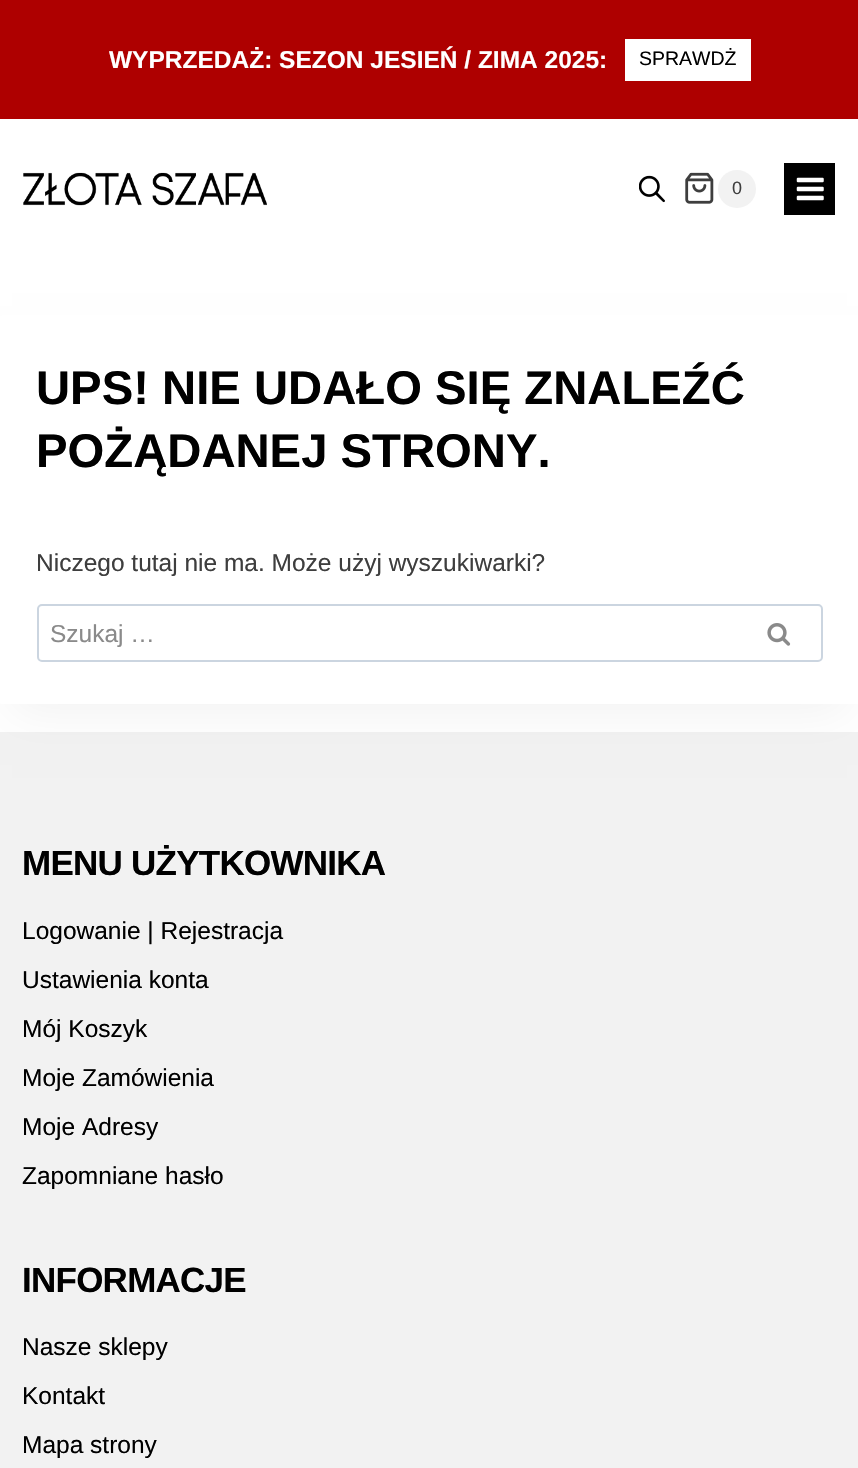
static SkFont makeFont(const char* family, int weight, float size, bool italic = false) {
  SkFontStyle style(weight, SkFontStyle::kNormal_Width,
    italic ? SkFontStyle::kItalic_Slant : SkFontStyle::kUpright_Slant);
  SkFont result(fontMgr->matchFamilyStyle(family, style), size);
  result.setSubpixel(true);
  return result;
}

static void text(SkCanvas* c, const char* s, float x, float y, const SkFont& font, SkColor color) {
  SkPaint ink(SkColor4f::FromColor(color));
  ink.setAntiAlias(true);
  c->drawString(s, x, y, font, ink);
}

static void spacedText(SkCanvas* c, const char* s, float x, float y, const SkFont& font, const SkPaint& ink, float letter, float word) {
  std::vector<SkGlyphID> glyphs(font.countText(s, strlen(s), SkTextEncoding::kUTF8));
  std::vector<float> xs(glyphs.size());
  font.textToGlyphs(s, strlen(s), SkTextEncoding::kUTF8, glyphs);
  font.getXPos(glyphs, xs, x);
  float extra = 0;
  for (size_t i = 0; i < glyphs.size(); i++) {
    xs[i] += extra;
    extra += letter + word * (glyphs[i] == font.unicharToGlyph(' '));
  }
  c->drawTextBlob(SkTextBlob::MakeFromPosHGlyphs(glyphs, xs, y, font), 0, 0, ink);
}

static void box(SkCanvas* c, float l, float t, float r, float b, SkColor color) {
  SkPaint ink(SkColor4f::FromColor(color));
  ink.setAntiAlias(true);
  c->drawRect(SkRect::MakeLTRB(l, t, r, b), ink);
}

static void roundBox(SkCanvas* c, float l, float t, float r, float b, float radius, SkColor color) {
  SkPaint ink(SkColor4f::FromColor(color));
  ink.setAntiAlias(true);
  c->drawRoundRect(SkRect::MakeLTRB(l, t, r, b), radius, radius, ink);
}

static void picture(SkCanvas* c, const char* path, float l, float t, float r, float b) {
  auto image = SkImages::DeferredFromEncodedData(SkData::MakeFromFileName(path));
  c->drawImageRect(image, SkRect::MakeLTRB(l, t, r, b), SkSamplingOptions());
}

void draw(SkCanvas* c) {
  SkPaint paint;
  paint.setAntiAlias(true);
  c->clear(0xffffffff);
  box(c, 0, 0, 858, 119, 0xffae0000);
  SkFont face1 = makeFont("Liberation Sans", 700, 24.5f);
  text(c, "WYPRZEDAŻ: SEZON JESIEŃ / ZIMA 2025:", 109, 68, face1, 0xffffffff);
  box(c, 625, 39, 751, 81, 0xffffffff);
  SkFont face2 = makeFont("Liberation Sans", 400, 19.5f);
  text(c, "SPRAWDŻ", 639, 65, face2, 0xff000000);
  picture(c, "img_01.png", 23, 172, 267, 206);
  picture(c, "img_02.png", 639, 175, 665, 203);
  picture(c, "img_03.png", 685, 172, 714, 204);
  paint.setColor(0xfff2f2f2);
  c->drawCircle(737, 189, 19, paint);
  SkFont face3 = makeFont("Liberation Sans", 400, 18);
  text(c, "0", 732, 194, face3, 0xff3e3e3e);
  box(c, 784, 163, 835, 215, 0xff000000);
  picture(c, "img_04.png", 796, 177, 824, 201);
  box(c, 0, 732, 858, 1468, 0xfff2f2f2);
  paint.setColor(0x0d000000);
  paint.setMaskFilter(SkMaskFilter::MakeBlur(kNormal_SkBlurStyle, 22));
  c->drawRect(SkRect::MakeLTRB(12, 359, 847, 712), paint);
  paint.setMaskFilter(nullptr);
  roundBox(c, -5, 315, 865, 704, 7, 0xffffffff);
  SkFont face4 = makeFont("Liberation Sans", 700, 47.25f);
  text(c, "UPS! NIE UDAŁO SIĘ ZNALEŹĆ", 36, 404, face4, 0xff000000);
  text(c, "POŻĄDANEJ STRONY.", 36, 467, face4, 0xff000000);
  SkFont face5 = makeFont("Liberation Sans", 400, 24.5f);
  text(c, "Niczego tutaj nie ma. Może użyj wyszukiwarki?", 36, 571, face5, 0xff3e3e3e);
  paint.setStyle(SkPaint::kStroke_Style);
  paint.setStrokeWidth(2);
  paint.setColor(0xffcbd5e0);
  c->drawRoundRect(SkRect::MakeLTRB(38, 605, 822, 661), 4, 4, paint);
  text(c, "Szukaj …", 50, 642, face5, 0xff8a8a8a);
  picture(c, "img_05.png", 767, 623, 791, 646);
  SkFont face6 = makeFont("Liberation Sans", 700, 35);
  paint.setStyle(SkPaint::kFill_Style);
  paint.setColor(0xff000000);
  spacedText(c, "MENU UŻYTKOWNIKA", 22, 875, face6, paint, -0.75f, 0);
  text(c, "Logowanie | Rejestracja", 22, 939, face5, 0xff000000);
  text(c, "Ustawienia konta", 22, 988, face5, 0xff000000);
  text(c, "Mój Koszyk", 22, 1037, face5, 0xff000000);
  text(c, "Moje Zamówienia", 22, 1086, face5, 0xff000000);
  text(c, "Moje Adresy", 22, 1135, face5, 0xff000000);
  text(c, "Zapomniane hasło", 22, 1184, face5, 0xff000000);
  spacedText(c, "INFORMACJE", 22, 1292, face6, paint, -0.75f, 0);
  text(c, "Nasze sklepy", 22, 1355, face5, 0xff000000);
  text(c, "Kontakt", 22, 1404, face5, 0xff000000);
  text(c, "Mapa strony", 22, 1453, face5, 0xff000000);
}
